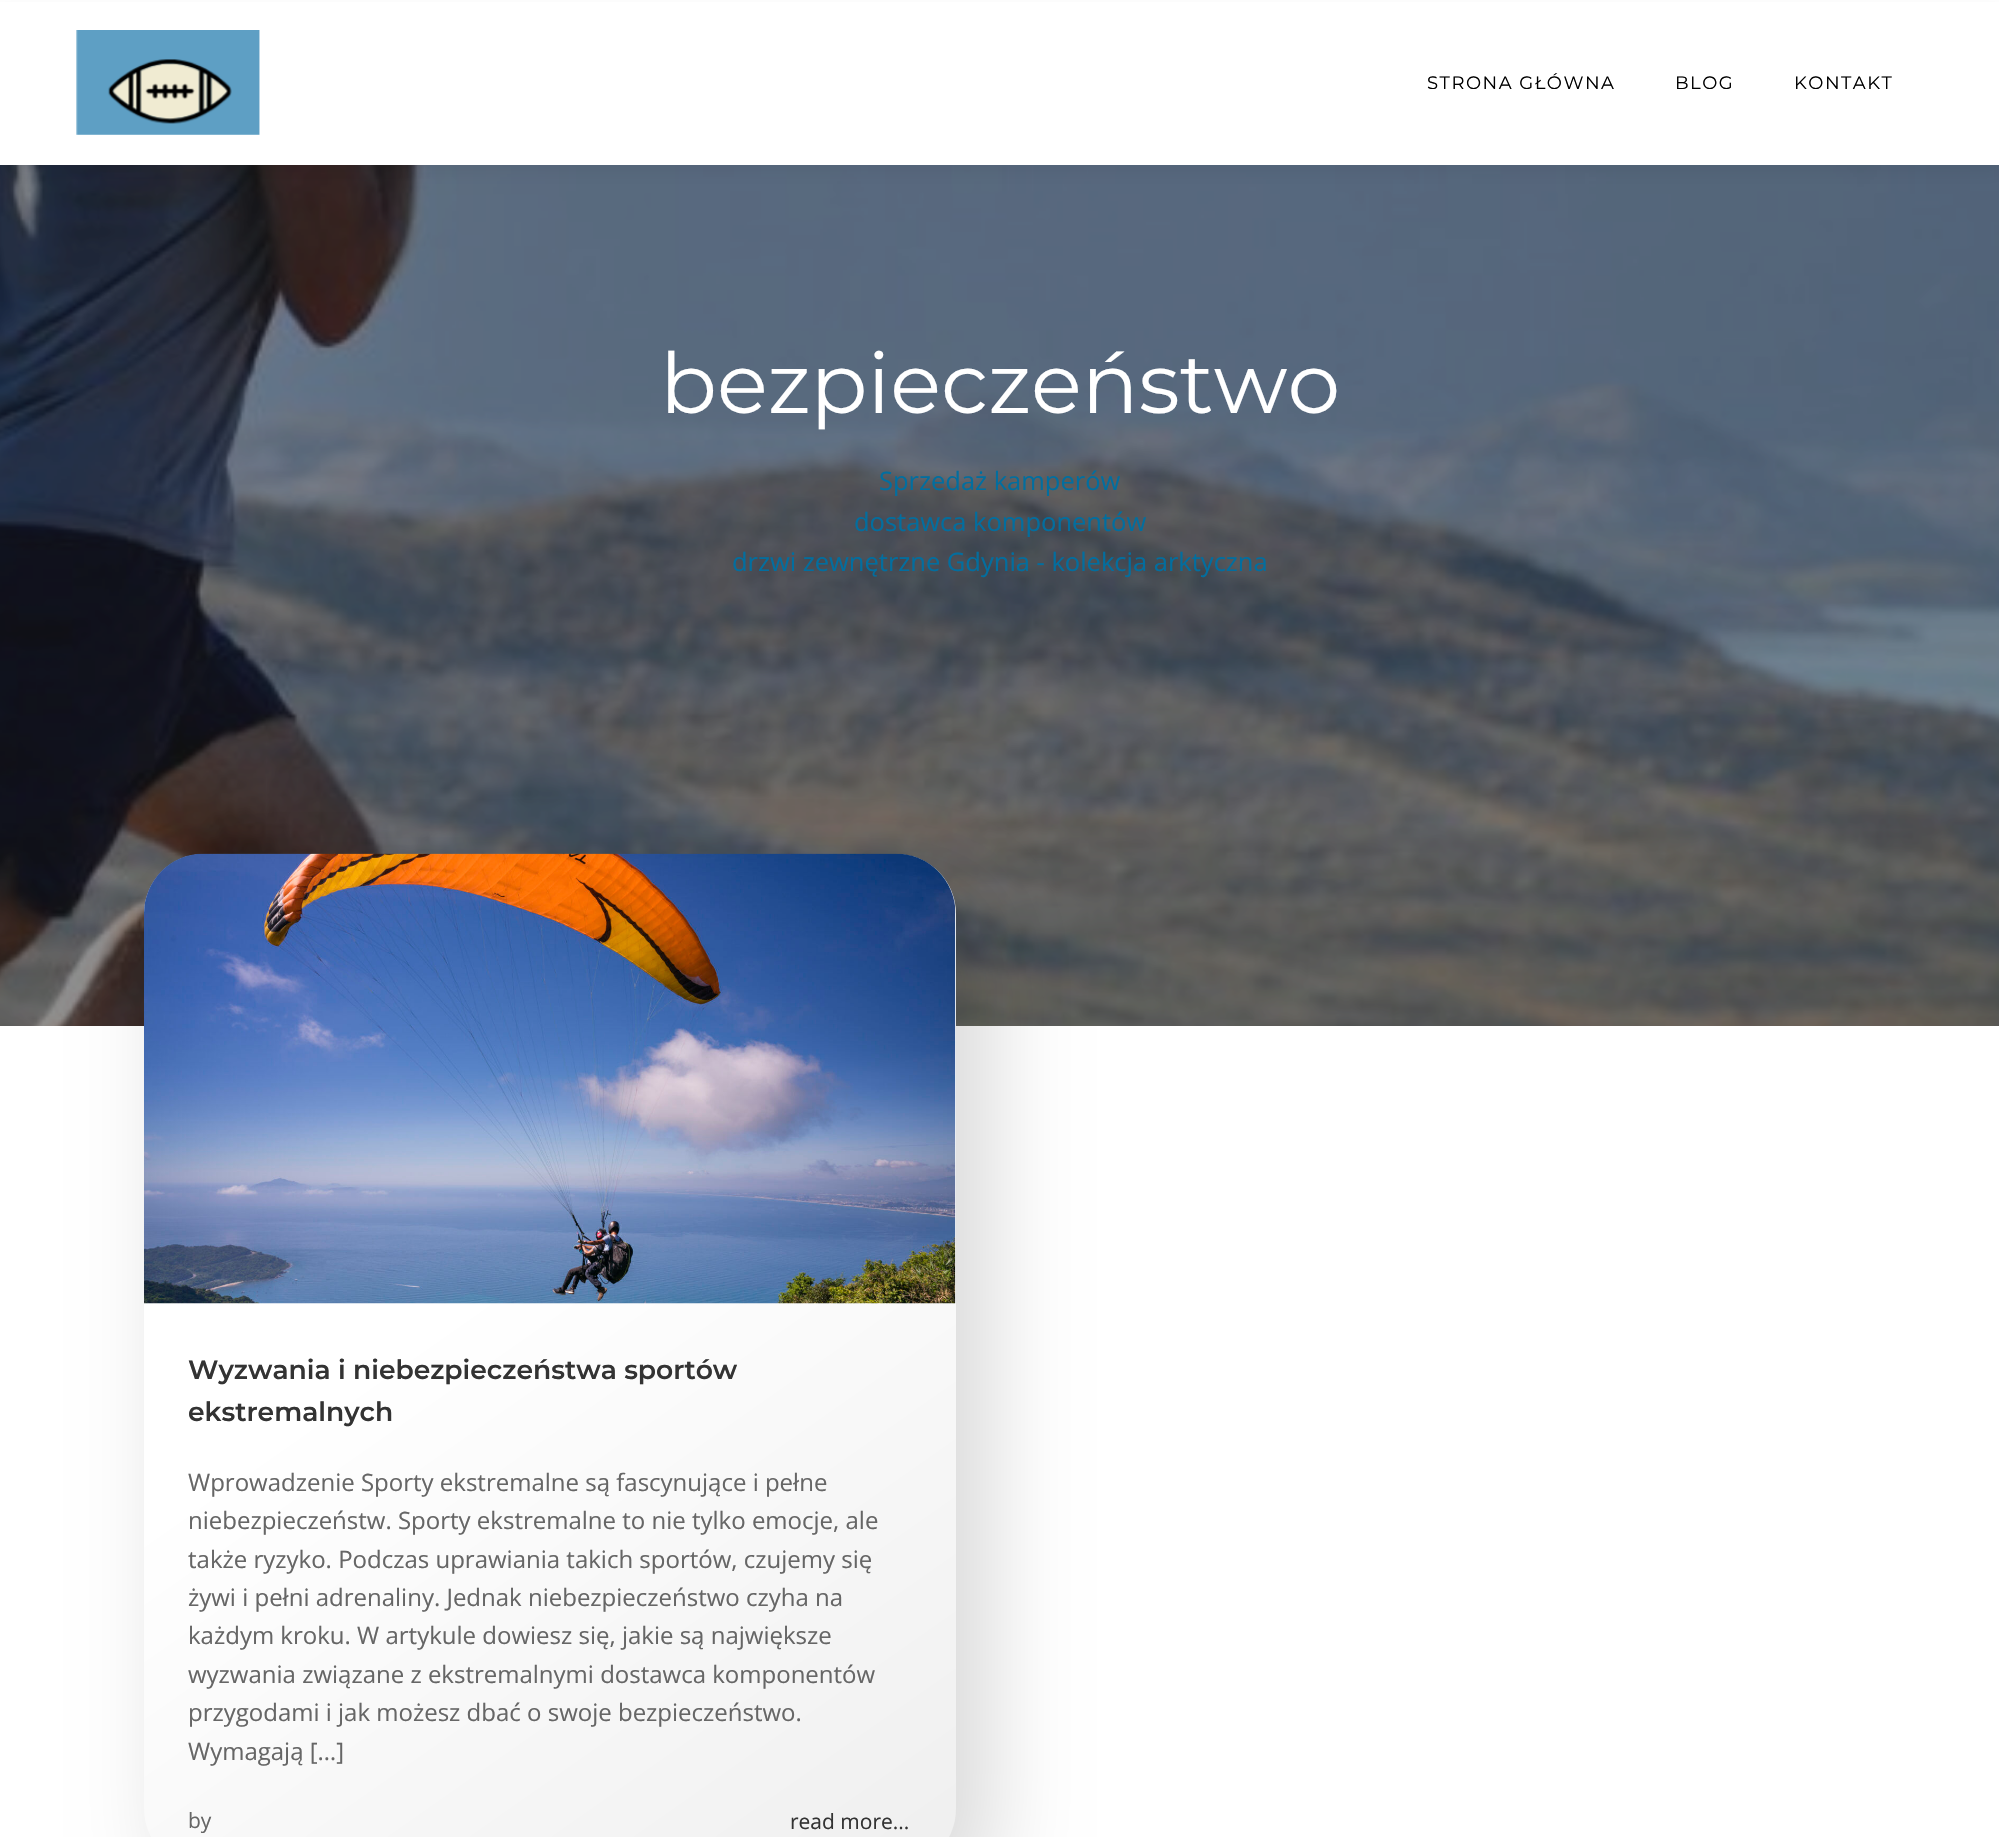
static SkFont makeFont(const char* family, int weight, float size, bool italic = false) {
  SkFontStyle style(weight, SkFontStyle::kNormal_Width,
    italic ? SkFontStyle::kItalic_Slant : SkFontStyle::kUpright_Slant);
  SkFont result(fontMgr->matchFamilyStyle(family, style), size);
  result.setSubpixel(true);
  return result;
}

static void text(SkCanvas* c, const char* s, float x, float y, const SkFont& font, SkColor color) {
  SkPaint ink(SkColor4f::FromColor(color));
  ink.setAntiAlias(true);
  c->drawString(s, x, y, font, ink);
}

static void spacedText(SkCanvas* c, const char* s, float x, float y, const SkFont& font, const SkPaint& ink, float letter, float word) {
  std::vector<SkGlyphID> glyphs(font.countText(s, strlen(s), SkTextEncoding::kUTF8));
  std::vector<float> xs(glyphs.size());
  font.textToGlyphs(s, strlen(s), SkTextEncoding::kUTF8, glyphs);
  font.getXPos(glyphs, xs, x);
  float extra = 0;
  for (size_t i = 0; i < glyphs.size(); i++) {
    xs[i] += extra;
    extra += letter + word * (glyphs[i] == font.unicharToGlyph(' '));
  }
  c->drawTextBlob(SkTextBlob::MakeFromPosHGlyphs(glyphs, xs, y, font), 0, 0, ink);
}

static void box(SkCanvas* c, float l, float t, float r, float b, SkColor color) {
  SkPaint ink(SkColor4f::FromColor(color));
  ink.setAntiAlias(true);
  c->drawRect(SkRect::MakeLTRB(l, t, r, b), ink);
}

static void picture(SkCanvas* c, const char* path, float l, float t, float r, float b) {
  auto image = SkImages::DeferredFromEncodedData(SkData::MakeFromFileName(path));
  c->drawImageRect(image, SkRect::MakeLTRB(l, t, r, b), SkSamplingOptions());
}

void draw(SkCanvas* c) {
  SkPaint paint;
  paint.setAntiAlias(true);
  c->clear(0xffffffff);
  picture(c, "img_02.png", 0, 165, 1999, 1026);
  paint.setColor(0x0d000000);
  paint.setMaskFilter(SkMaskFilter::MakeBlur(kNormal_SkBlurStyle, 7.5f));
  c->drawRect(SkRect::MakeLTRB(0, 8, 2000, 173), paint);
  paint.setMaskFilter(nullptr);
  box(c, 0, 2, 1999, 165, 0xffffffff);
  picture(c, "img_01.png", 76, 30, 260, 135);
  SkFont face1 = makeFont("Montserrat", 400, 18);
  paint.setColor(0xff000000);
  spacedText(c, "STRONA GŁÓWNA", 1427, 89, face1, paint, 1.5f, 0);
  spacedText(c, "BLOG", 1675, 89, face1, paint, 1.5f, 0);
  spacedText(c, "KONTAKT", 1794, 89, face1, paint, 1.5f, 0);
  SkFont face2 = makeFont("Montserrat", 400, 84);
  text(c, "bezpieczeństwo", 660, 413, face2, 0xffffffff);
  SkFont face3 = makeFont("Open Sans", 400, 25.5f);
  text(c, "Sprzedaż kamperów", 879, 490, face3, 0xff026e9f);
  text(c, "dostawca komponentów", 854, 531, face3, 0xff026e9f);
  text(c, "drzwi zewnętrzne Gdynia - kolekcja arktyczna", 732, 571, face3, 0xff026e9f);
  paint.setColor(0x26000000);
  paint.setMaskFilter(SkMaskFilter::MakeBlur(kNormal_SkBlurStyle, 45));
  c->drawRoundRect(SkRect::MakeLTRB(171, 881, 989, 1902), 63, 63, paint);
  paint.setMaskFilter(nullptr);
  {
    const SkColor colors[] = {0xffffffff, 0xffefefef};
    const float stops[] = {0.42f, 1};
    const SkPoint ends[] = {{178, 830}, {922, 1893}};
    paint.setShader(SkGradientShader::MakeLinear(ends, colors, stops, 2, SkTileMode::kClamp));
    paint.setAlpha(255);
  }
  c->drawRoundRect(SkRect::MakeLTRB(144, 854, 956, 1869), 60, 60, paint);
  picture(c, "img_03.png", 144, 853, 956, 1304);
  SkFont face4 = makeFont("Montserrat", 600, 26.6f);
  text(c, "Wyzwania i niebezpieczeństwa sportów", 188, 1379, face4, 0xff333333);
  text(c, "ekstremalnych", 188, 1421, face4, 0xff333333);
  SkFont face5 = makeFont("Open Sans", 400, 24);
  text(c, "Wprowadzenie Sporty ekstremalne są fascynujące i pełne", 188, 1491, face5, 0xff666666);
  text(c, "niebezpieczeństw. Sporty ekstremalne to nie tylko emocje, ale", 188, 1529, face5, 0xff666666);
  text(c, "także ryzyko. Podczas uprawiania takich sportów, czujemy się", 188, 1568, face5, 0xff666666);
  text(c, "żywi i pełni adrenaliny. Jednak niebezpieczeństwo czyha na", 188, 1606, face5, 0xff666666);
  text(c, "każdym kroku. W artykule dowiesz się, jakie są największe", 188, 1644, face5, 0xff666666);
  text(c, "wyzwania związane z ekstremalnymi dostawca komponentów", 188, 1683, face5, 0xff666666);
  text(c, "przygodami i jak możesz dbać o swoje bezpieczeństwo.", 188, 1721, face5, 0xff666666);
  text(c, "Wymagają […]", 188, 1760, face5, 0xff666666);
  SkFont face6 = makeFont("Open Sans", 400, 21);
  text(c, "by", 188, 1828, face6, 0xff666666);
  text(c, "read more...", 790, 1829, face6, 0xff333333);
}
